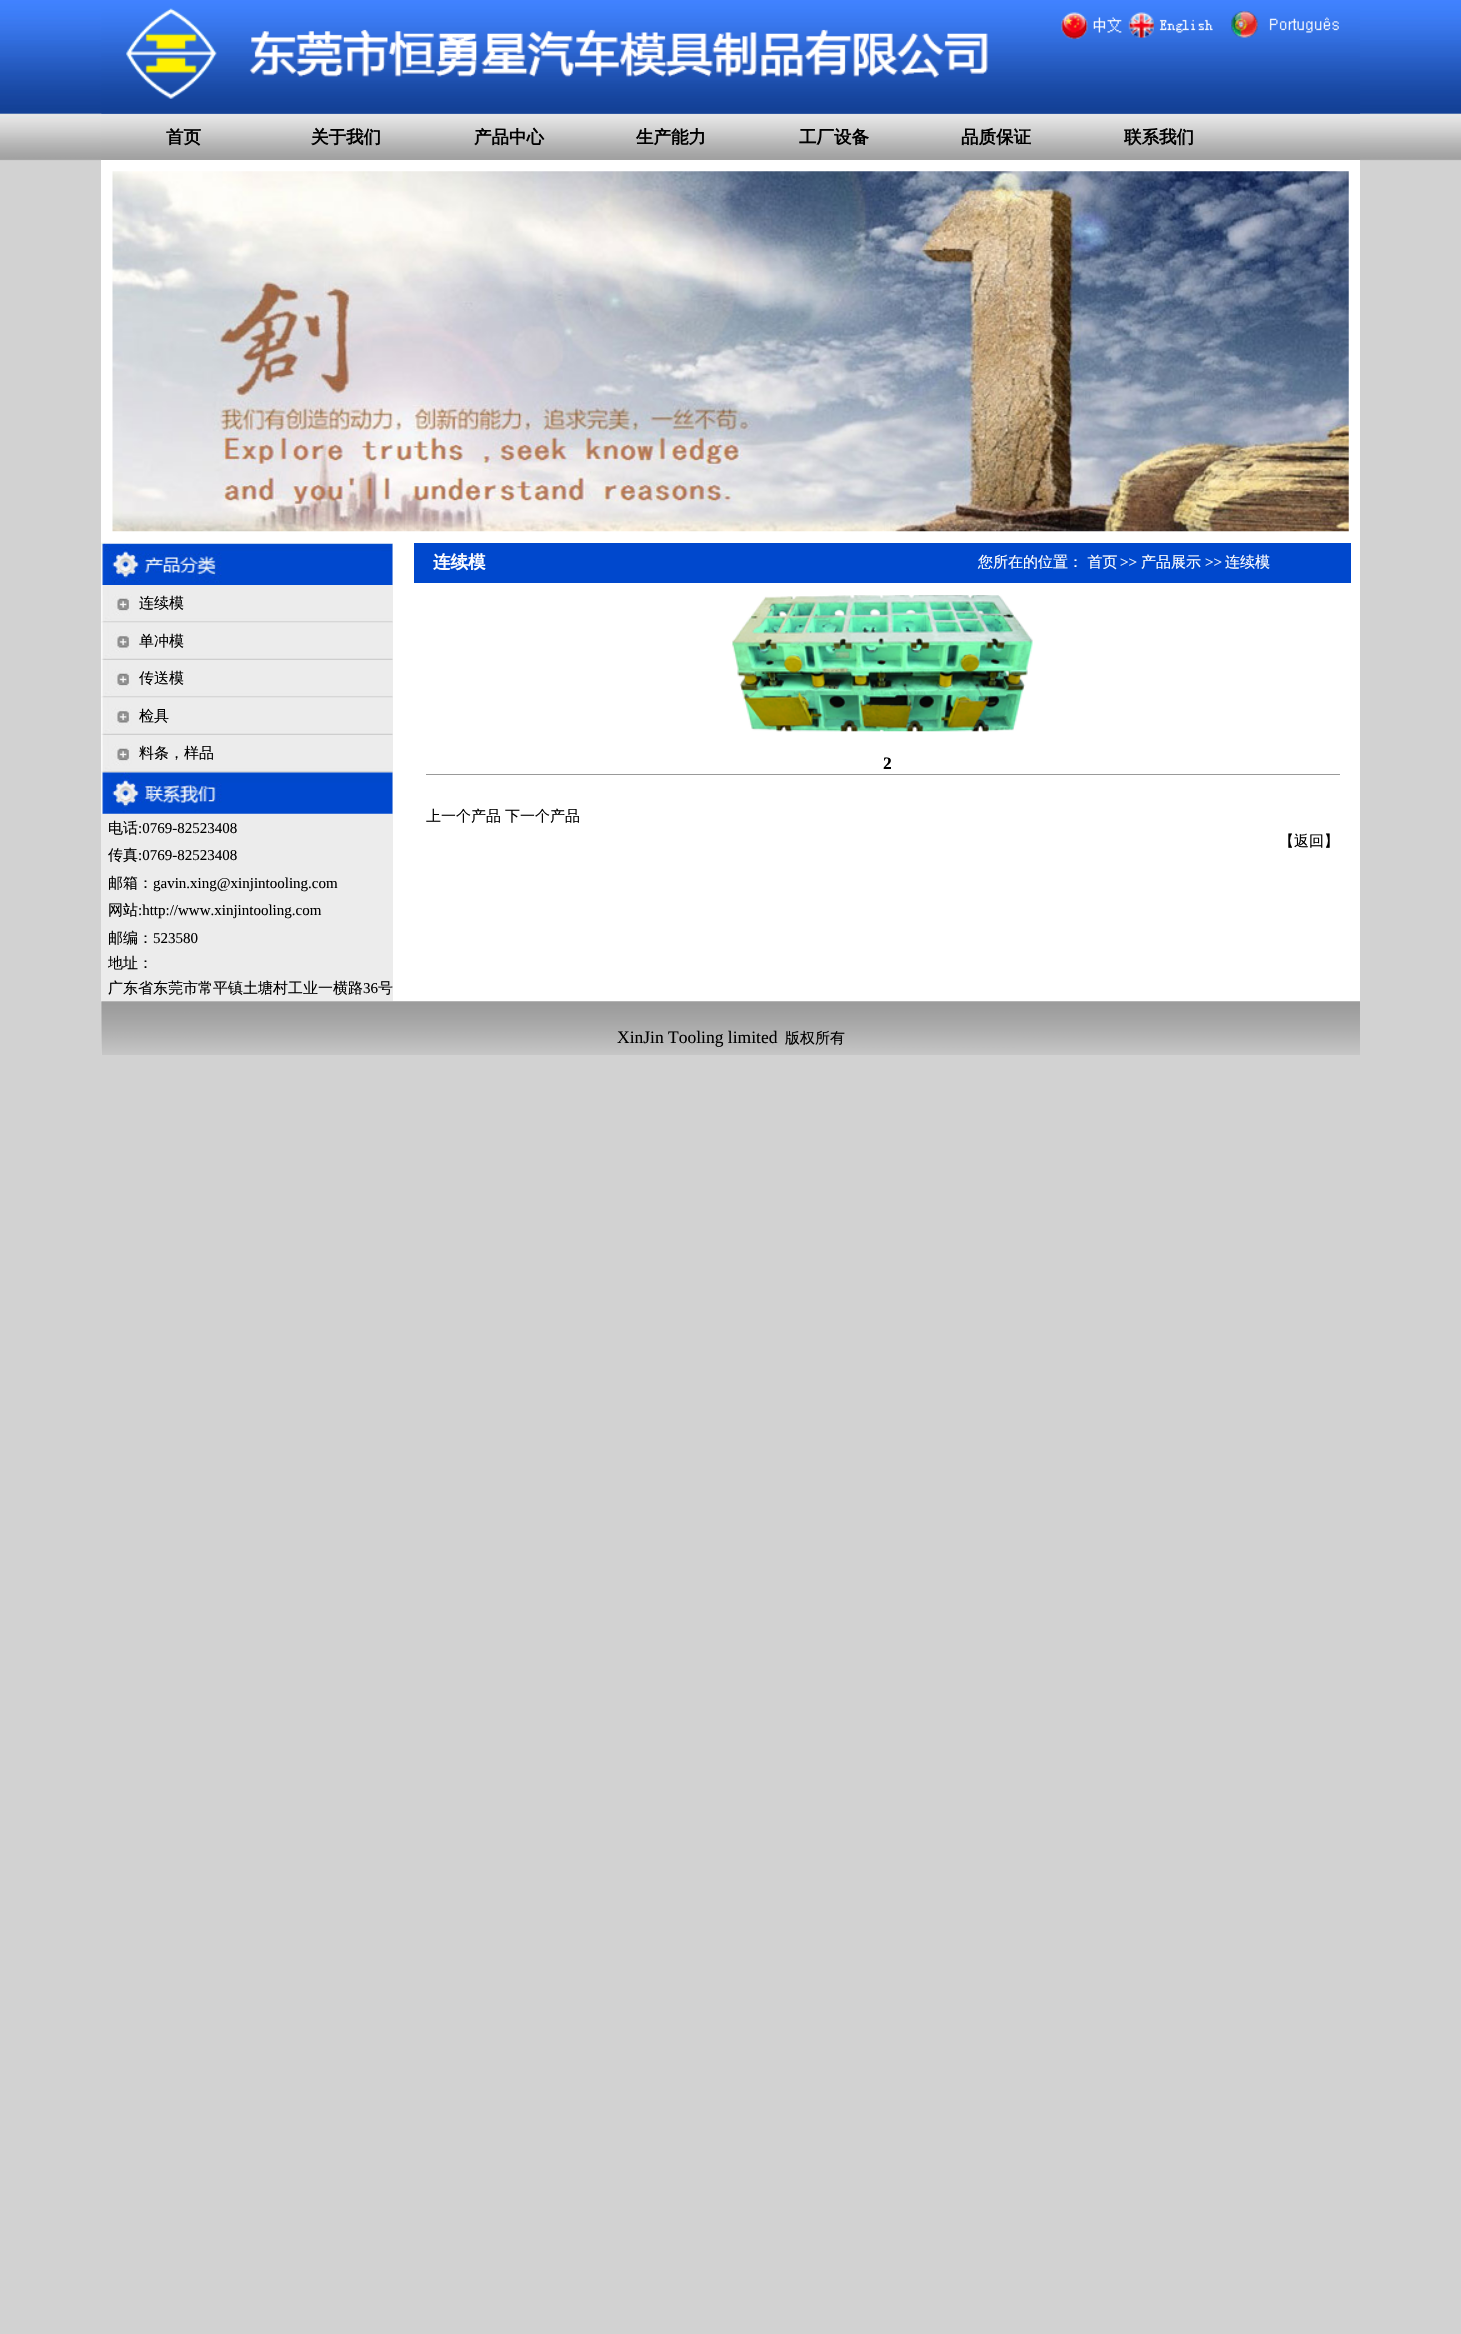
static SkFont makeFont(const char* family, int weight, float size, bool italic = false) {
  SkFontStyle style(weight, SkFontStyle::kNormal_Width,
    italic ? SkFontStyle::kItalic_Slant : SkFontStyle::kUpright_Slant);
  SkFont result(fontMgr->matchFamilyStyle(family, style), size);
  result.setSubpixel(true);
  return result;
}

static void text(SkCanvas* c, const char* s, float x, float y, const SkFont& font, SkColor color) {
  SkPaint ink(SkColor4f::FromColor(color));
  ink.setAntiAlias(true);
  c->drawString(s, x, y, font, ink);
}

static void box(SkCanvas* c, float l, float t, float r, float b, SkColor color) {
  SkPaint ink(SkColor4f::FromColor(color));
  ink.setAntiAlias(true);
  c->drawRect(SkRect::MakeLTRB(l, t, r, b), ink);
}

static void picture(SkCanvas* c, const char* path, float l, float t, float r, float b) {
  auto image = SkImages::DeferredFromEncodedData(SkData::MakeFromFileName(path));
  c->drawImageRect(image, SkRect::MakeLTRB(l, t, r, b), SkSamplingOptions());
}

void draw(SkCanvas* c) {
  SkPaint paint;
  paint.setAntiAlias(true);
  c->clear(0xffd2d2d2);
  picture(c, "img_01.png", 0, 0, 1461, 161);
  picture(c, "img_03.png", 101, 113, 1360, 160);
  picture(c, "img_02.png", 101, 8, 1360, 114);
  SkFont face1 = makeFont("WenQuanYi Zen Hei", 700, 17.5f);
  text(c, "首页", 166, 143, face1, 0xff000000);
  text(c, "关于我们", 311, 143, face1, 0xff000000);
  text(c, "产品中心", 474, 143, face1, 0xff000000);
  text(c, "生产能力", 636, 143, face1, 0xff000000);
  text(c, "工厂设备", 799, 143, face1, 0xff000000);
  text(c, "品质保证", 961, 143, face1, 0xff000000);
  text(c, "联系我们", 1124, 143, face1, 0xff000000);
  box(c, 101, 160, 1360, 543, 0xffffffff);
  picture(c, "img_04.png", 112, 171, 1349, 532);
  box(c, 393, 543, 1360, 1001, 0xffffffff);
  box(c, 101, 543, 393, 1001, 0xffececec);
  picture(c, "img_05.png", 101, 542, 393, 585);
  picture(c, "img_06.png", 101, 585, 393, 623);
  SkFont face2 = makeFont("WenQuanYi Zen Hei", 500, 15);
  text(c, "连续模", 139, 608, face2, 0xff000000);
  picture(c, "img_07.png", 101, 622, 393, 660);
  text(c, "单冲模", 139, 646, face2, 0xff000000);
  picture(c, "img_08.png", 101, 660, 393, 698);
  text(c, "传送模", 139, 683, face2, 0xff000000);
  picture(c, "img_07.png", 101, 697, 393, 735);
  text(c, "检具", 139, 721, face2, 0xff000000);
  picture(c, "img_08.png", 101, 735, 393, 773);
  text(c, "料条，样品", 139, 758, face2, 0xff000000);
  picture(c, "img_09.png", 101, 772, 393, 814);
  text(c, "电话", 108, 833, face2, 0xff000000);
  SkFont face3 = makeFont("Liberation Serif", 400, 15);
  text(c, ":0769-82523408", 138, 833, face3, 0xff000000);
  text(c, "传真", 108, 860, face2, 0xff000000);
  text(c, ":0769-82523408", 138, 860, face3, 0xff000000);
  text(c, "邮箱：", 108, 888, face2, 0xff000000);
  text(c, "gavin.xing@xinjintooling.com", 153, 888, face3, 0xff000000);
  text(c, "网站", 108, 915, face2, 0xff000000);
  text(c, ":http://www.xinjintooling.com", 138, 915, face3, 0xff000000);
  text(c, "邮编：", 108, 943, face2, 0xff000000);
  text(c, "523580", 153, 943, face3, 0xff000000);
  text(c, "地址：", 108, 968, face2, 0xff000000);
  text(c, "广东省东莞市常平镇土塘村工业一横路", 108, 993, face2, 0xff000000);
  text(c, "36", 363, 993, face3, 0xff000000);
  text(c, "号", 378, 993, face2, 0xff000000);
  box(c, 414, 543, 1351, 583, 0xff0048cd);
  text(c, "连续模", 433, 568, face1, 0xffffffff);
  text(c, "您所在的位置： 首页", 978, 567, face2, 0xffffffff);
  text(c, ">>", 1120, 567, face3, 0xffffffff);
  text(c, "产品展示", 1141, 567, face2, 0xffffffff);
  text(c, ">>", 1205, 567, face3, 0xffffffff);
  text(c, "连续模", 1225, 567, face2, 0xffffffff);
  picture(c, "img_10.png", 732, 595, 1033, 732);
  SkFont face4 = makeFont("Liberation Serif", 700, 17.5f);
  text(c, "2", 883, 769, face4, 0xff000000);
  box(c, 426, 774, 1340, 775, 0xff999999);
  text(c, "上一个产品", 426, 821, face2, 0xff000000);
  text(c, "下一个产品", 505, 821, face2, 0xff000000);
  text(c, "【返回】", 1279, 846, face2, 0xff000000);
  box(c, 101, 1001, 1360, 1055, 0xffffffff);
  picture(c, "img_11.png", 101, 1001, 1360, 1055);
  SkFont face5 = makeFont("Liberation Serif", 400, 17.5f);
  text(c, "XinJin Tooling limited", 617, 1043, face5, 0xff000000);
  text(c, "版权所有", 785, 1043, face2, 0xff000000);
}
